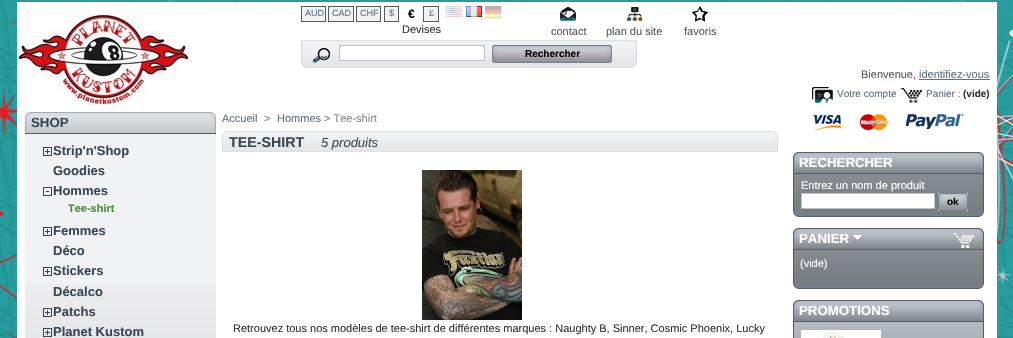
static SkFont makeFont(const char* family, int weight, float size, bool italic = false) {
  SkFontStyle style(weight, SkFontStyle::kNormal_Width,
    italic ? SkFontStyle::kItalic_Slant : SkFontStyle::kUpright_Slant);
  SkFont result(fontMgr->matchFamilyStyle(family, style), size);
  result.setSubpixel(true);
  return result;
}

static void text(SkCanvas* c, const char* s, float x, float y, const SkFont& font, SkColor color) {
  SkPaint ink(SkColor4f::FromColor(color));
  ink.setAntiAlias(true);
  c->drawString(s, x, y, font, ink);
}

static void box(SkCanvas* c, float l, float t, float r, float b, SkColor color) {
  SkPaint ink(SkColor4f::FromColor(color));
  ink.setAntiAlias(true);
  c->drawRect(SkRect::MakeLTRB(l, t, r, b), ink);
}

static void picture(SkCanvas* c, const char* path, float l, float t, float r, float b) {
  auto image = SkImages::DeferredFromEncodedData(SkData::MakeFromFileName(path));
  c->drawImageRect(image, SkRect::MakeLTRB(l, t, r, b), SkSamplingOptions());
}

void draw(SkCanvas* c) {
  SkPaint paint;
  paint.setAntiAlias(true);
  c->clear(0xffffffff);
  picture(c, "img_01.png", 0, 0, 1013, 338);
  box(c, 17, 2, 997, 338, 0xffffffff);
  picture(c, "img_02.png", 17, 13, 190, 106);
  paint.setColor(0xfff1f2f4);
  c->drawRect(SkRect::MakeLTRB(301.5f, 6.5f, 325.5f, 21.5f), paint);
  paint.setStyle(SkPaint::kStroke_Style);
  paint.setStrokeWidth(1);
  paint.setColor(0xff595a5e);
  c->drawRect(SkRect::MakeLTRB(301.5f, 6.5f, 325.5f, 21.5f), paint);
  SkFont face1 = makeFont("Liberation Sans", 400, 9);
  text(c, "AUD", 305, 16, face1, 0xff5d717e);
  paint.setStyle(SkPaint::kFill_Style);
  paint.setColor(0xfff1f2f4);
  c->drawRect(SkRect::MakeLTRB(328.5f, 6.5f, 353.5f, 21.5f), paint);
  paint.setStyle(SkPaint::kStroke_Style);
  paint.setColor(0xff595a5e);
  c->drawRect(SkRect::MakeLTRB(328.5f, 6.5f, 353.5f, 21.5f), paint);
  text(c, "CAD", 332, 16, face1, 0xff5d717e);
  paint.setStyle(SkPaint::kFill_Style);
  paint.setColor(0xfff1f2f4);
  c->drawRect(SkRect::MakeLTRB(356.5f, 6.5f, 380.5f, 21.5f), paint);
  paint.setStyle(SkPaint::kStroke_Style);
  paint.setColor(0xff595a5e);
  c->drawRect(SkRect::MakeLTRB(356.5f, 6.5f, 380.5f, 21.5f), paint);
  text(c, "CHF", 360, 16, face1, 0xff5d717e);
  paint.setStyle(SkPaint::kFill_Style);
  paint.setColor(0xfff1f2f4);
  c->drawRect(SkRect::MakeLTRB(384.5f, 6.5f, 398.5f, 21.5f), paint);
  paint.setStyle(SkPaint::kStroke_Style);
  paint.setColor(0xff595a5e);
  c->drawRect(SkRect::MakeLTRB(384.5f, 6.5f, 398.5f, 21.5f), paint);
  text(c, "$", 389, 16, face1, 0xff5d717e);
  SkFont face2 = makeFont("Liberation Sans", 700, 12);
  text(c, "€", 408, 18, face2, 0xff000000);
  paint.setStyle(SkPaint::kFill_Style);
  paint.setColor(0xfff1f2f4);
  c->drawRect(SkRect::MakeLTRB(423.5f, 6.5f, 438.5f, 21.5f), paint);
  paint.setStyle(SkPaint::kStroke_Style);
  paint.setColor(0xff595a5e);
  c->drawRect(SkRect::MakeLTRB(423.5f, 6.5f, 438.5f, 21.5f), paint);
  text(c, "£", 429, 16, face1, 0xff5d717e);
  SkFont face3 = makeFont("Liberation Sans", 400, 11);
  text(c, "Devises", 402, 33, face3, 0xff333333);
  picture(c, "img_03.png", 446, 6, 462, 17);
  picture(c, "img_04.png", 466, 6, 482, 17);
  picture(c, "img_05.png", 485, 6, 502, 19);
  picture(c, "img_06.png", 560, 7, 576, 21);
  text(c, "contact", 551, 35, face3, 0xff595a5e);
  picture(c, "img_07.png", 627, 7, 642, 21);
  text(c, "plan du site", 606, 35, face3, 0xff595a5e);
  picture(c, "img_08.png", 692, 6, 708, 22);
  text(c, "favoris", 684, 35, face3, 0xff595a5e);
  picture(c, "img_09.png", 301, 40, 637, 68);
  picture(c, "img_10.png", 313, 48, 330, 63);
  paint.setStyle(SkPaint::kFill_Style);
  paint.setColor(0xffffffff);
  c->drawRect(SkRect::MakeLTRB(339.5f, 45.5f, 484.5f, 60.5f), paint);
  paint.setStyle(SkPaint::kStroke_Style);
  paint.setColor(0xffbdc2c9);
  c->drawRect(SkRect::MakeLTRB(339.5f, 45.5f, 484.5f, 60.5f), paint);
  box(c, 492, 45, 612, 63, 0xffefefef);
  picture(c, "img_11.png", 492, 45, 612, 63);
  SkFont face4 = makeFont("Liberation Sans", 700, 10);
  text(c, "Rechercher", 525, 57, face4, 0xff000000);
  text(c, "Bienvenue,", 861, 78, face3, 0xff595a5e);
  text(c, "identifiez-vous", 919, 78, face3, 0xff5d717e);
  box(c, 919, 79, 990, 80, 0xff5d717e);
  picture(c, "img_12.png", 812, 87, 833, 103);
  SkFont face5 = makeFont("Liberation Sans", 400, 10);
  text(c, "Votre compte", 837, 97, face5, 0xff5d717e);
  picture(c, "img_13.png", 901, 88, 922, 103);
  text(c, "Panier :", 926, 97, face5, 0xff5d717e);
  text(c, "(vide)", 963, 97, face4, 0xff333333);
  picture(c, "img_14.png", 25, 112, 216, 133);
  box(c, 25, 133, 216, 134, 0xff595a5e);
  SkFont face6 = makeFont("Liberation Sans", 700, 13.25f);
  text(c, "SHOP", 31, 127, face6, 0xff374853);
  box(c, 25, 134, 216, 284, 0xfff1f2f4);
  picture(c, "img_15.png", 25, 284, 216, 338);
  picture(c, "img_16.png", 43, 147, 52, 156);
  SkFont face7 = makeFont("Liberation Sans", 700, 13);
  text(c, "Strip'n'Shop", 53, 155, face7, 0xff374853);
  text(c, "Goodies", 53, 175, face7, 0xff374853);
  picture(c, "img_17.png", 43, 187, 52, 196);
  text(c, "Hommes", 53, 195, face7, 0xff374853);
  SkFont face8 = makeFont("Liberation Sans", 700, 11);
  text(c, "Tee-shirt", 68, 212, face8, 0xff488c40);
  picture(c, "img_16.png", 43, 227, 52, 236);
  text(c, "Femmes", 53, 235, face7, 0xff374853);
  text(c, "Déco", 53, 255, face7, 0xff374853);
  picture(c, "img_16.png", 43, 267, 52, 276);
  text(c, "Stickers", 53, 275, face7, 0xff374853);
  text(c, "Décalco", 53, 296, face7, 0xff374853);
  picture(c, "img_18.png", 43, 308, 52, 317);
  text(c, "Patchs", 53, 316, face7, 0xff374853);
  picture(c, "img_19.png", 43, 328, 52, 337);
  text(c, "Planet Kustom", 53, 336, face7, 0xff374853);
  text(c, "Accueil", 222, 122, face3, 0xff5d717e);
  text(c, ">", 264, 122, face3, 0xff888888);
  text(c, "Hommes", 277, 122, face3, 0xff5d717e);
  text(c, "> Tee-shirt", 324, 122, face3, 0xff888888);
  picture(c, "img_20.png", 222, 131, 778, 152);
  SkFont face9 = makeFont("Liberation Sans", 700, 14.25f);
  text(c, "TEE-SHIRT", 229, 147, face9, 0xff374853);
  SkFont face10 = makeFont("Liberation Sans", 400, 13, true);
  text(c, "5 produits", 321, 147, face10, 0xff374853);
  picture(c, "img_21.png", 421, 170, 526, 320);
  text(c, "Retrouvez tous nos modèles de tee-shirt de différentes marques : Naughty B, Sinner, Cosmic Phoenix, Lucky", 233, 332, face3, 0xff333333);
  picture(c, "img_22.png", 812, 113, 842, 133);
  picture(c, "img_23.png", 859, 112, 889, 131);
  picture(c, "img_24.png", 906, 114, 963, 129);
  picture(c, "img_25.png", 793, 211, 984, 217);
  picture(c, "img_26.png", 793, 152, 984, 173);
  box(c, 793, 173, 984, 174, 0xff595a5e);
  text(c, "RECHERCHER", 799, 167, face6, 0xffffffff);
  picture(c, "img_27.png", 794, 174, 983, 211);
  box(c, 983, 174, 984, 211, 0xff595a5e);
  box(c, 793, 174, 794, 211, 0xff595a5e);
  text(c, "Entrez un nom de produit", 801, 189, face3, 0xffffffff);
  paint.setStyle(SkPaint::kFill_Style);
  paint.setColor(0xffffffff);
  c->drawRect(SkRect::MakeLTRB(801.5f, 193.5f, 934.5f, 208.5f), paint);
  paint.setStyle(SkPaint::kStroke_Style);
  paint.setColor(0xffbdc2c9);
  c->drawRect(SkRect::MakeLTRB(801.5f, 193.5f, 934.5f, 208.5f), paint);
  box(c, 938, 193, 968, 211, 0xffefefef);
  picture(c, "img_28.png", 938, 193, 968, 211);
  text(c, "ok", 947, 205, face4, 0xff000000);
  picture(c, "img_25.png", 793, 283, 984, 289);
  picture(c, "img_29.png", 793, 228, 984, 249);
  box(c, 793, 249, 984, 250, 0xff595a5e);
  text(c, "PANIER", 799, 243, face6, 0xffffffff);
  picture(c, "img_30.png", 853, 235, 862, 240);
  picture(c, "img_31.png", 794, 250, 983, 283);
  box(c, 983, 250, 984, 283, 0xff595a5e);
  box(c, 793, 250, 794, 283, 0xff595a5e);
  text(c, "(vide)", 800, 267, face3, 0xffffffff);
  picture(c, "img_26.png", 793, 300, 984, 321);
  box(c, 793, 321, 984, 322, 0xff595a5e);
  text(c, "PROMOTIONS", 799, 315, face6, 0xffffffff);
  picture(c, "img_32.png", 794, 322, 983, 338);
  box(c, 983, 322, 984, 338, 0xff595a5e);
  box(c, 793, 322, 794, 338, 0xff595a5e);
  picture(c, "img_33.png", 801, 330, 881, 338);
}
